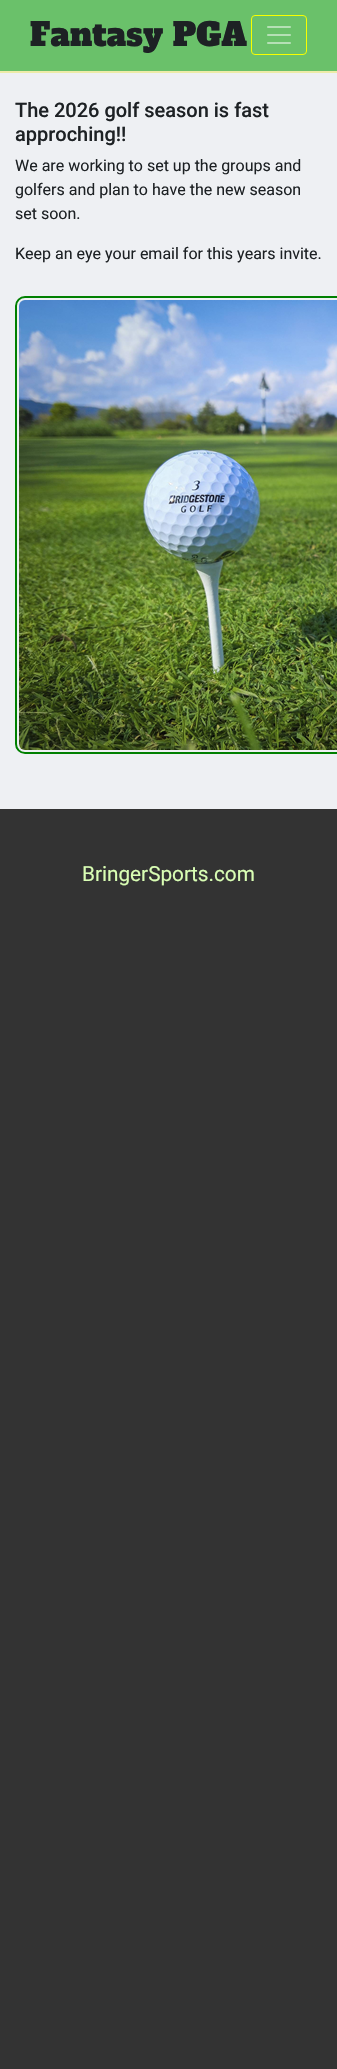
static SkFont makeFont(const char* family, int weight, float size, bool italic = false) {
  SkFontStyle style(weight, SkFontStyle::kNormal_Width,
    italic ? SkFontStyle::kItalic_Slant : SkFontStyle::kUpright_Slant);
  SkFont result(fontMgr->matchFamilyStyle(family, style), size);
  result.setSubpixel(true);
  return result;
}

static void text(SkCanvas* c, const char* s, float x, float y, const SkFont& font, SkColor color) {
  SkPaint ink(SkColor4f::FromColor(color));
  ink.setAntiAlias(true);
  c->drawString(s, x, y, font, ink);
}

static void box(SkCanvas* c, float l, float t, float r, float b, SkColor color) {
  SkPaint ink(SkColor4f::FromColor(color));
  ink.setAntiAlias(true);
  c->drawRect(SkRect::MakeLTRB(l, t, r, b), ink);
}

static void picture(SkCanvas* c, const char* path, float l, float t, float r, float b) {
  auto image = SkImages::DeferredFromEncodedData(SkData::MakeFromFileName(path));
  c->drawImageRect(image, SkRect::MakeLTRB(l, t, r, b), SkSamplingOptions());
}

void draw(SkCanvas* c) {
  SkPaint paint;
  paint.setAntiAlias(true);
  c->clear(0xff333333);
  box(c, 0, 0, 337, 71, 0xff6ac16a);
  box(c, 0, 71, 337, 73, 0xffedeba7);
  SkFont face1 = makeFont("Alfa Slab One", 400, 32);
  text(c, "Fantasy PGA", 30, 46, face1, 0xff1d2124);
  paint.setStyle(SkPaint::kStroke_Style);
  paint.setStrokeWidth(1);
  paint.setColor(0xfff7ff00);
  c->drawRoundRect(SkRect::MakeLTRB(251.5f, 15.5f, 306.5f, 54.5f), 3.5f, 3.5f, paint);
  picture(c, "img_01.png", 267, 26, 291, 44);
  box(c, 0, 73, 337, 809, 0xffeef0f3);
  SkFont face2 = makeFont("Roboto", 500, 20);
  text(c, "The 2026 golf season is fast", 15, 117, face2, 0xff1d2124);
  text(c, "approching!!", 15, 141, face2, 0xff1d2124);
  SkFont face3 = makeFont("Roboto", 400, 16);
  text(c, "We are working to set up the groups and", 15, 171, face3, 0xff1d2124);
  text(c, "golfers and plan to have the new season", 15, 195, face3, 0xff1d2124);
  text(c, "set soon.", 15, 219, face3, 0xff1d2124);
  text(c, "Keep an eye your email for this years invite.", 15, 259, face3, 0xff1d2124);
  paint.setStrokeWidth(2);
  paint.setColor(0xff008000);
  c->drawRoundRect(SkRect::MakeLTRB(16, 297, 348, 753), 9, 9, paint);
  picture(c, "img_02.png", 19, 300, 337, 750);
  SkFont face4 = makeFont("Roboto", 400, 20.75f);
  text(c, "BringerSports.com", 82, 881, face4, 0xffd9feb4);
}
